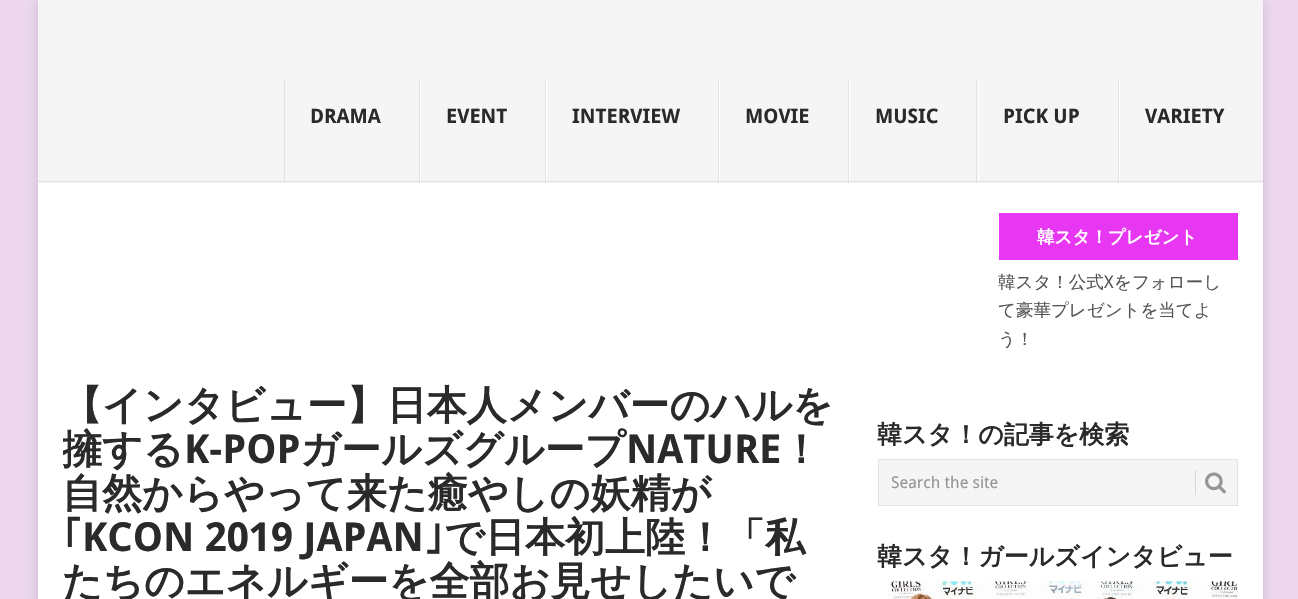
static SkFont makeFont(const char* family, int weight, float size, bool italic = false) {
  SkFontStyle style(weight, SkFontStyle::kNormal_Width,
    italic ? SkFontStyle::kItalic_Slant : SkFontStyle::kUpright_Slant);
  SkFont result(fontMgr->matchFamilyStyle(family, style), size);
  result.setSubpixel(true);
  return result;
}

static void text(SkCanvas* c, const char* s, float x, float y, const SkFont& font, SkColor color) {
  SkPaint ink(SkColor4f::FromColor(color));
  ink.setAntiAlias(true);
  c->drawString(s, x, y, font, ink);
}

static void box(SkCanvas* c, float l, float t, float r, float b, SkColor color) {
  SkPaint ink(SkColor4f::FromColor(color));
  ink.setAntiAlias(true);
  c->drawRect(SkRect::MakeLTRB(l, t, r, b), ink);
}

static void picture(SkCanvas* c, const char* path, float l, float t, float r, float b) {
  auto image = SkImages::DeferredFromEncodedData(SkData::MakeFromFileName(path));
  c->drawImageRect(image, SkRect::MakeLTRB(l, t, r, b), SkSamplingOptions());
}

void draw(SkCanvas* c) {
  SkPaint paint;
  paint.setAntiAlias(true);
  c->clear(0xffecd7ef);
  paint.setColor(0x2b323232);
  paint.setMaskFilter(SkMaskFilter::MakeBlur(kNormal_SkBlurStyle, 6));
  c->drawRect(SkRect::MakeLTRB(38, 0, 1263, 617), paint);
  paint.setMaskFilter(nullptr);
  box(c, 38, 183, 1263, 599, 0xffffffff);
  box(c, 38, 0, 1263, 183, 0xfff5f5f5);
  box(c, 419, 80, 420, 183, 0xffe2e2e2);
  box(c, 284, 80, 285, 183, 0xffe2e2e2);
  SkFont face1 = makeFont("Droid Sans", 700, 20);
  text(c, "DRAMA", 310, 123, face1, 0xff2a2a2a);
  box(c, 545, 80, 546, 183, 0xffe2e2e2);
  box(c, 420, 80, 421, 183, 0xffffffff);
  text(c, "EVENT", 446, 123, face1, 0xff2a2a2a);
  box(c, 718, 80, 719, 183, 0xffe2e2e2);
  box(c, 546, 80, 547, 183, 0xffffffff);
  text(c, "INTERVIEW", 572, 123, face1, 0xff2a2a2a);
  box(c, 848, 80, 849, 183, 0xffe2e2e2);
  box(c, 719, 80, 720, 183, 0xffffffff);
  text(c, "MOVIE", 745, 123, face1, 0xff2a2a2a);
  box(c, 976, 80, 977, 183, 0xffe2e2e2);
  box(c, 849, 80, 850, 183, 0xffffffff);
  text(c, "MUSIC", 875, 123, face1, 0xff2a2a2a);
  box(c, 1118, 80, 1119, 183, 0xffe2e2e2);
  box(c, 978, 80, 979, 183, 0xffffffff);
  text(c, "PICK UP", 1003, 123, face1, 0xff2a2a2a);
  box(c, 1119, 80, 1120, 183, 0xffffffff);
  text(c, "VARIETY", 1145, 123, face1, 0xff2a2a2a);
  box(c, 38, 181, 1263, 182, 0xffe2e2e2);
  box(c, 999, 213, 1238, 260, 0xffe837f2);
  SkFont face2 = makeFont("WenQuanYi Zen Hei", 700, 17.5f);
  text(c, "韓スタ！プレゼント", 1037, 243, face2, 0xffffffff);
  SkFont face3 = makeFont("WenQuanYi Zen Hei", 500, 17.5f);
  text(c, "韓スタ！公式", 998, 288, face3, 0xff555555);
  SkFont face4 = makeFont("Droid Sans", 400, 17.5f);
  text(c, "X", 1104, 288, face4, 0xff555555);
  text(c, "をフォローし", 1114, 288, face3, 0xff555555);
  text(c, "て豪華プレゼントを当てよ", 998, 316, face3, 0xff555555);
  text(c, "う！", 998, 345, face3, 0xff555555);
  SkFont face5 = makeFont("WenQuanYi Zen Hei", 700, 40);
  text(c, "【インタビュー】日本人メンバーのハルを", 62, 419, face5, 0xff2a2a2a);
  c->save();
  c->clipRect(SkRect::MakeLTRB(63, 384, 840, 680));
  text(c, "擁する", 62, 463, face5, 0xff2a2a2a);
  c->restore();
  SkFont face6 = makeFont("Droid Sans", 700, 40);
  text(c, "K-POP", 184, 463, face6, 0xff2a2a2a);
  text(c, "ガールズグループ", 300, 463, face5, 0xff2a2a2a);
  text(c, "NATURE", 626, 463, face6, 0xff2a2a2a);
  text(c, "！", 781, 463, face5, 0xff2a2a2a);
  text(c, "自然からやって来た癒やしの妖精が", 62, 507, face5, 0xff2a2a2a);
  SkFont face7 = makeFont("IPAPGothic", 700, 40);
  text(c, "｢", 62, 551, face7, 0xff2a2a2a);
  text(c, "KCON 2019 JAPAN", 82, 551, face6, 0xff2a2a2a);
  text(c, "｣", 424, 551, face7, 0xff2a2a2a);
  text(c, "で日本初上陸！「私", 444, 551, face5, 0xff2a2a2a);
  text(c, "たちのエネルギーを全部お見せしたいで", 62, 595, face5, 0xff2a2a2a);
  SkFont face8 = makeFont("WenQuanYi Zen Hei", 700, 25);
  text(c, "韓スタ！の記事を検索", 877, 443, face8, 0xff2a2a2a);
  paint.setColor(0xfff5f5f5);
  c->drawRect(SkRect::MakeLTRB(878.5f, 459.5f, 1237.5f, 505.5f), paint);
  paint.setStyle(SkPaint::kStroke_Style);
  paint.setStrokeWidth(1);
  paint.setColor(0xffe2e2e2);
  c->drawRect(SkRect::MakeLTRB(878.5f, 459.5f, 1237.5f, 505.5f), paint);
  SkFont face9 = makeFont("Droid Sans", 400, 16.25f);
  text(c, "Search the site", 891, 488, face9, 0xff959595);
  box(c, 1195, 470, 1196, 495, 0xffd8d8d8);
  picture(c, "img_01.png", 1205, 472, 1226, 494);
  text(c, "韓スタ！ガールズインタビュー", 877, 565, face8, 0xff2a2a2a);
  picture(c, "img_02.png", 888, 581, 1238, 599);
}
